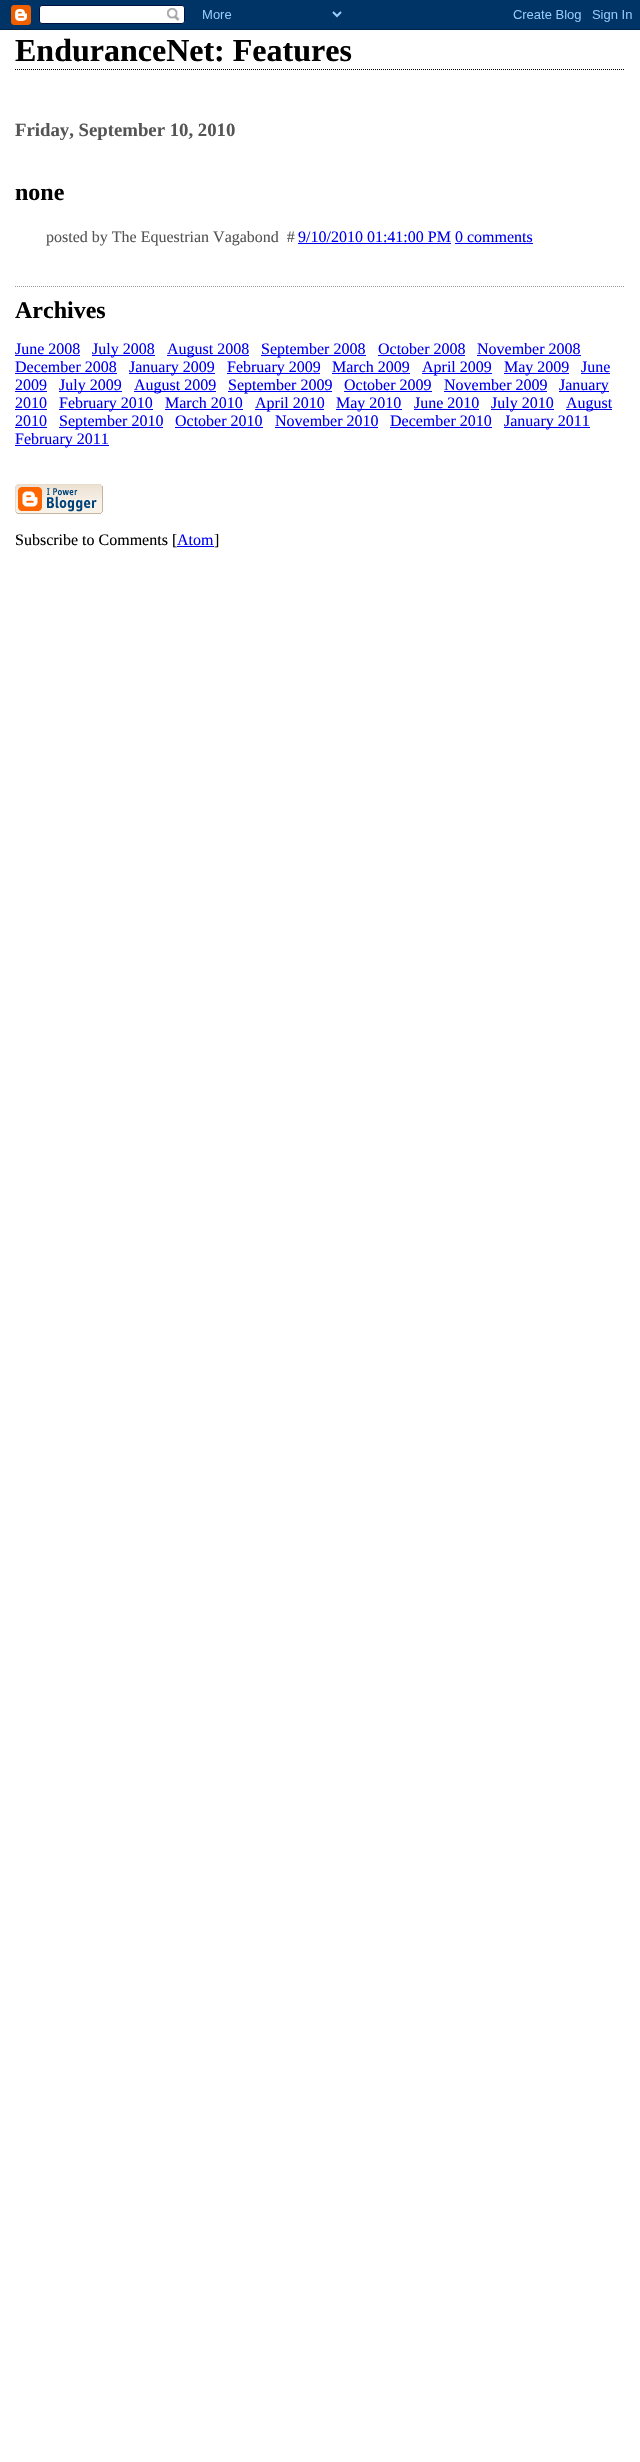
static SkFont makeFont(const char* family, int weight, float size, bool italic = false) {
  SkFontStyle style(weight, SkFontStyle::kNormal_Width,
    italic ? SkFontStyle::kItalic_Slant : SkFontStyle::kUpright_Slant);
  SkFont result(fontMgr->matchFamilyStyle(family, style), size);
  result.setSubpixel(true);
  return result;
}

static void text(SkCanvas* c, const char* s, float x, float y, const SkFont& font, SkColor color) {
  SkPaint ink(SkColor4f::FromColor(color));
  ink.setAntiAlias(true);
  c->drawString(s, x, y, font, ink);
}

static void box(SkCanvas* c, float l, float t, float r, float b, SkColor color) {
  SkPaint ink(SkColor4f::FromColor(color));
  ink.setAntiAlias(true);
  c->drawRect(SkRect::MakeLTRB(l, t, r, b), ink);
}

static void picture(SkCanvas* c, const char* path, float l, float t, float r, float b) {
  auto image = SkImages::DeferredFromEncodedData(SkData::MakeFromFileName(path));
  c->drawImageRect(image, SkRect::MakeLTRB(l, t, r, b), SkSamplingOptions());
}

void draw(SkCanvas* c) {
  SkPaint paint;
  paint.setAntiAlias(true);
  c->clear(0xffffffff);
  picture(c, "img_01.png", 0, 0, 640, 30);
  paint.setStyle(SkPaint::kStroke_Style);
  paint.setStrokeWidth(1);
  paint.setColor(0xff000000);
  paint.setPathEffect(SkDashPathEffect::Make({{1, 1}}, 0));
  c->drawPath(SkPathBuilder().moveTo(15, 69.5f).lineTo(625, 69.5f).detach(), paint);
  paint.setPathEffect(nullptr);
  SkFont face1 = makeFont("Liberation Serif", 700, 32);
  text(c, "EnduranceNet: Features", 15, 61, face1, 0xff000000);
  SkFont face2 = makeFont("Liberation Serif", 700, 18.75f);
  text(c, "Friday, September 10, 2010", 15, 136, face2, 0xff555555);
  SkFont face3 = makeFont("Liberation Serif", 700, 24);
  text(c, "none", 15, 200, face3, 0xff000000);
  SkFont face4 = makeFont("Liberation Serif", 400, 16);
  text(c, "posted by The Equestrian Vagabond  #", 46, 242, face4, 0xff555555);
  text(c, "9/10/2010 01:41:00 PM 0 comments", 298, 242, face4, 0xff0000ee);
  box(c, 298, 243, 451, 244, 0xff0000ee);
  box(c, 455, 243, 533, 244, 0xff0000ee);
  paint.setColor(0xff999999);
  paint.setPathEffect(SkDashPathEffect::Make({{1, 1}}, 0));
  c->drawPath(SkPathBuilder().moveTo(15, 286.5f).lineTo(625, 286.5f).detach(), paint);
  paint.setPathEffect(nullptr);
  text(c, "Archives", 15, 318, face3, 0xff000000);
  text(c, "June 2008", 15, 354, face4, 0xff0000ee);
  box(c, 15, 355, 80, 356, 0xff0000ee);
  box(c, 92, 355, 155, 356, 0xff0000ee);
  text(c, "July 2008", 92, 354, face4, 0xff0000ee);
  box(c, 167, 355, 249, 356, 0xff0000ee);
  text(c, "August 2008", 167, 354, face4, 0xff0000ee);
  box(c, 261, 355, 366, 356, 0xff0000ee);
  text(c, "September 2008", 261, 354, face4, 0xff0000ee);
  text(c, "October 2008", 378, 354, face4, 0xff0000ee);
  box(c, 378, 355, 465, 356, 0xff0000ee);
  text(c, "November 2008", 477, 354, face4, 0xff0000ee);
  box(c, 477, 355, 581, 356, 0xff0000ee);
  text(c, "December 2008", 15, 372, face4, 0xff0000ee);
  box(c, 15, 373, 117, 374, 0xff0000ee);
  box(c, 129, 373, 215, 374, 0xff0000ee);
  text(c, "January 2009", 129, 372, face4, 0xff0000ee);
  box(c, 227, 373, 320, 374, 0xff0000ee);
  text(c, "February 2009", 227, 372, face4, 0xff0000ee);
  text(c, "March 2009", 332, 372, face4, 0xff0000ee);
  box(c, 332, 373, 410, 374, 0xff0000ee);
  box(c, 422, 373, 492, 374, 0xff0000ee);
  text(c, "April 2009", 422, 372, face4, 0xff0000ee);
  box(c, 504, 373, 569, 374, 0xff0000ee);
  text(c, "May 2009", 504, 372, face4, 0xff0000ee);
  text(c, "June", 581, 372, face4, 0xff0000ee);
  box(c, 581, 373, 610, 374, 0xff0000ee);
  text(c, "2009", 15, 390, face4, 0xff0000ee);
  box(c, 15, 391, 47, 392, 0xff0000ee);
  box(c, 59, 391, 122, 392, 0xff0000ee);
  text(c, "July 2009", 59, 390, face4, 0xff0000ee);
  box(c, 134, 391, 216, 392, 0xff0000ee);
  text(c, "August 2009", 134, 390, face4, 0xff0000ee);
  box(c, 228, 391, 332, 392, 0xff0000ee);
  text(c, "September 2009", 228, 390, face4, 0xff0000ee);
  text(c, "October 2009", 344, 390, face4, 0xff0000ee);
  box(c, 344, 391, 432, 392, 0xff0000ee);
  text(c, "November 2009", 444, 390, face4, 0xff0000ee);
  box(c, 444, 391, 547, 392, 0xff0000ee);
  box(c, 559, 391, 609, 392, 0xff0000ee);
  text(c, "January", 559, 390, face4, 0xff0000ee);
  text(c, "2010", 15, 408, face4, 0xff0000ee);
  box(c, 15, 409, 47, 410, 0xff0000ee);
  box(c, 59, 409, 153, 410, 0xff0000ee);
  text(c, "February 2010", 59, 408, face4, 0xff0000ee);
  text(c, "March 2010", 165, 408, face4, 0xff0000ee);
  box(c, 165, 409, 243, 410, 0xff0000ee);
  box(c, 255, 409, 324, 410, 0xff0000ee);
  text(c, "April 2010", 255, 408, face4, 0xff0000ee);
  box(c, 336, 409, 402, 410, 0xff0000ee);
  text(c, "May 2010", 336, 408, face4, 0xff0000ee);
  text(c, "June 2010", 414, 408, face4, 0xff0000ee);
  box(c, 414, 409, 479, 410, 0xff0000ee);
  box(c, 491, 409, 554, 410, 0xff0000ee);
  text(c, "July 2010", 491, 408, face4, 0xff0000ee);
  box(c, 566, 409, 612, 410, 0xff0000ee);
  text(c, "August", 566, 408, face4, 0xff0000ee);
  text(c, "2010", 15, 426, face4, 0xff0000ee);
  box(c, 15, 427, 47, 428, 0xff0000ee);
  box(c, 59, 427, 163, 428, 0xff0000ee);
  text(c, "September 2010", 59, 426, face4, 0xff0000ee);
  text(c, "October 2010", 175, 426, face4, 0xff0000ee);
  box(c, 175, 427, 263, 428, 0xff0000ee);
  text(c, "November 2010", 275, 426, face4, 0xff0000ee);
  box(c, 275, 427, 378, 428, 0xff0000ee);
  text(c, "December 2010", 390, 426, face4, 0xff0000ee);
  box(c, 390, 427, 492, 428, 0xff0000ee);
  box(c, 504, 427, 590, 428, 0xff0000ee);
  text(c, "January 2011", 504, 426, face4, 0xff0000ee);
  box(c, 15, 445, 109, 446, 0xff0000ee);
  text(c, "February 2011", 15, 444, face4, 0xff0000ee);
  picture(c, "img_02.png", 15, 484, 103, 514);
  text(c, "Subscribe to Comments [", 15, 545, face4, 0xff000000);
  text(c, "Atom", 177, 545, face4, 0xff0000ee);
  box(c, 177, 546, 214, 547, 0xff0000ee);
  text(c, "]", 214, 545, face4, 0xff000000);
}
